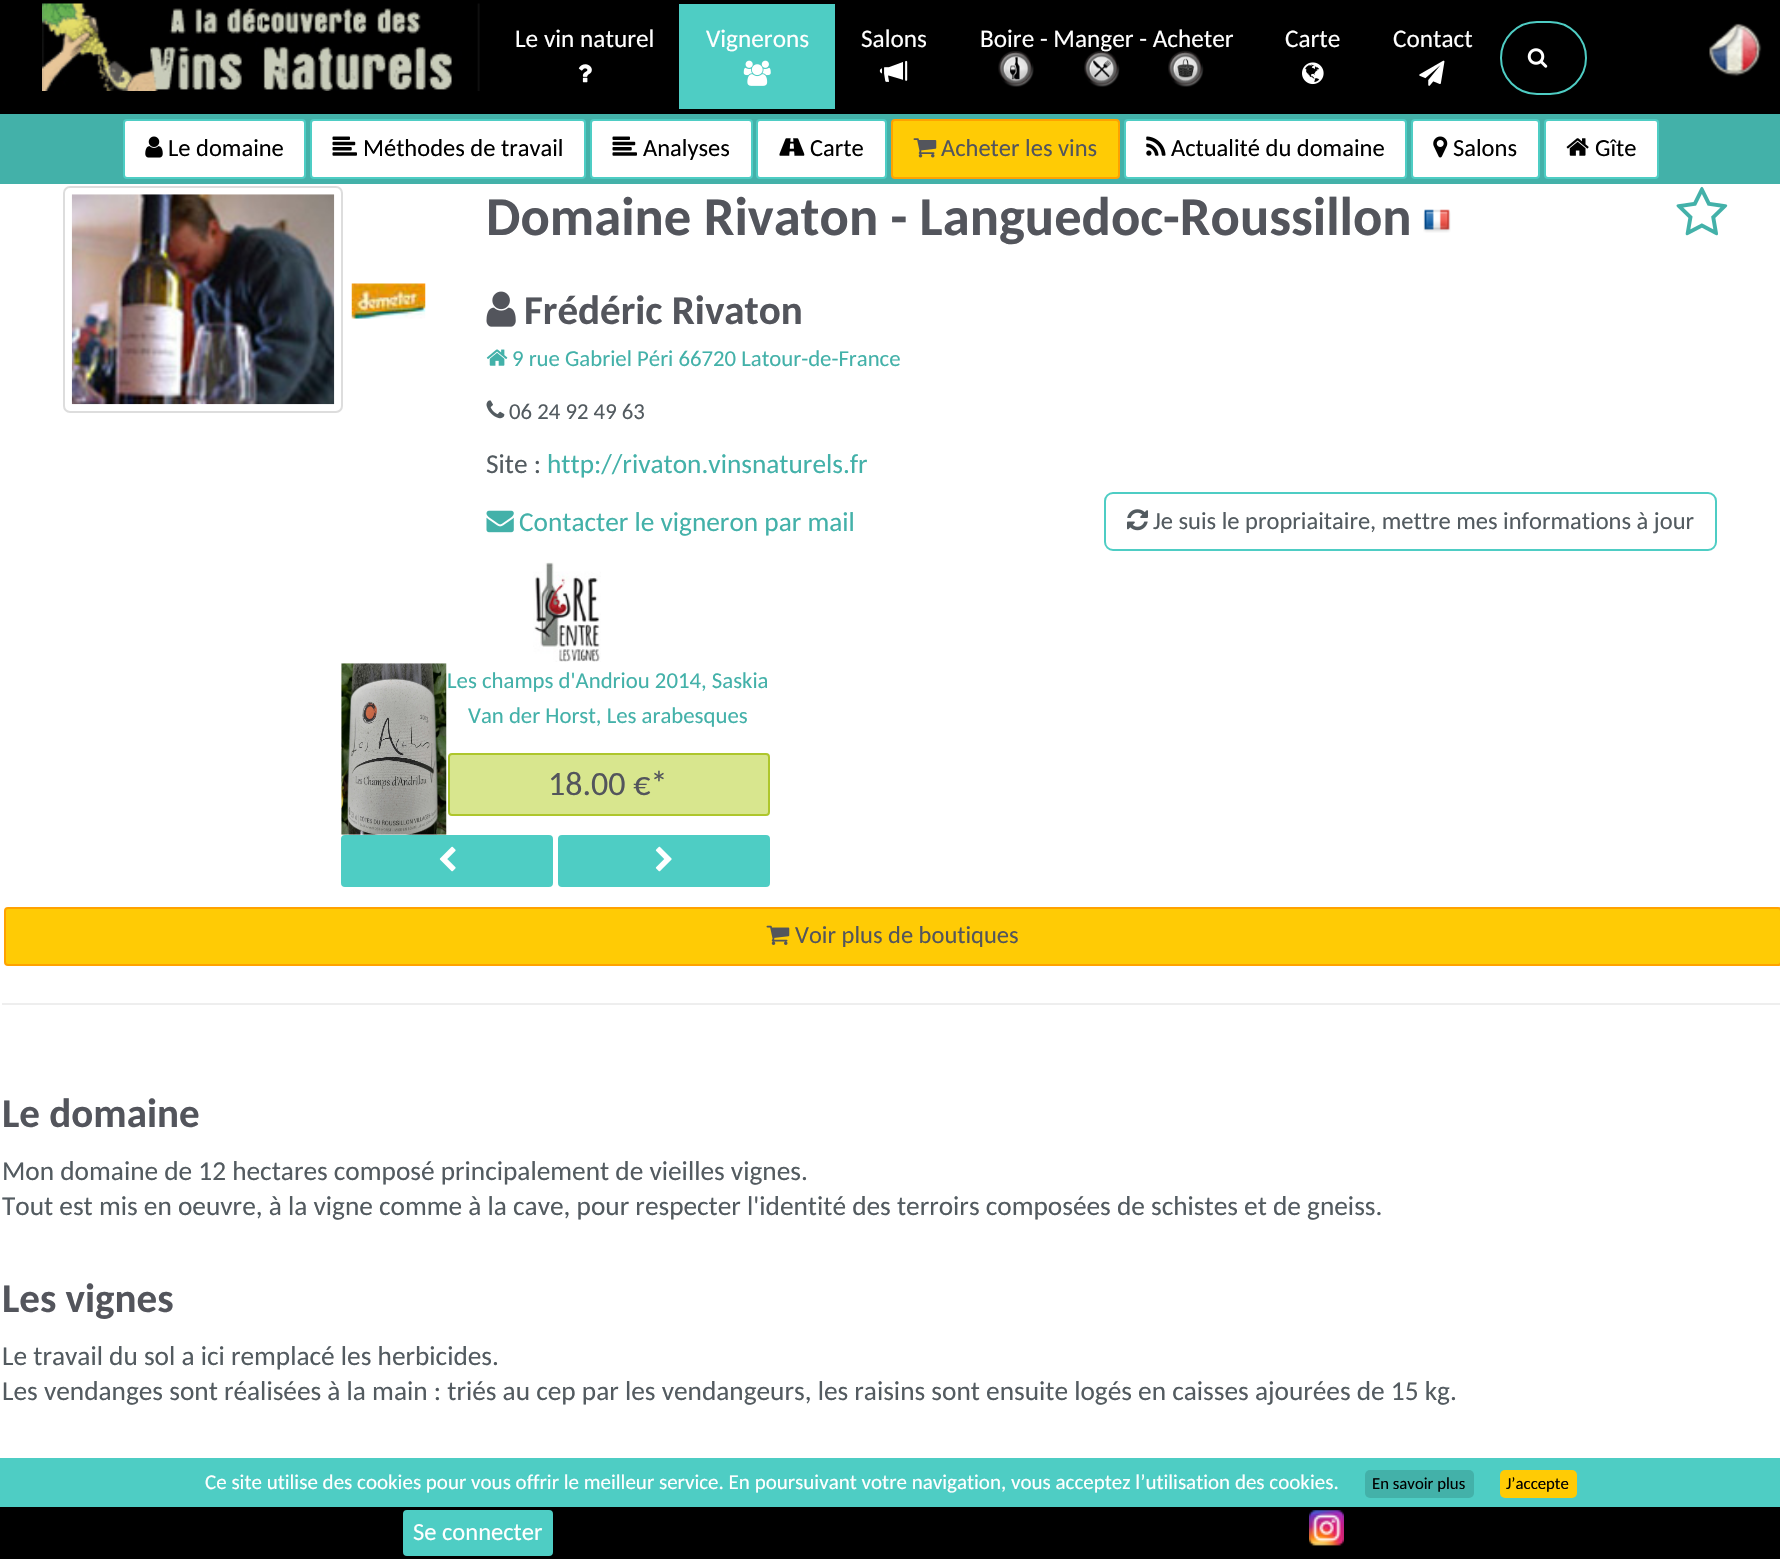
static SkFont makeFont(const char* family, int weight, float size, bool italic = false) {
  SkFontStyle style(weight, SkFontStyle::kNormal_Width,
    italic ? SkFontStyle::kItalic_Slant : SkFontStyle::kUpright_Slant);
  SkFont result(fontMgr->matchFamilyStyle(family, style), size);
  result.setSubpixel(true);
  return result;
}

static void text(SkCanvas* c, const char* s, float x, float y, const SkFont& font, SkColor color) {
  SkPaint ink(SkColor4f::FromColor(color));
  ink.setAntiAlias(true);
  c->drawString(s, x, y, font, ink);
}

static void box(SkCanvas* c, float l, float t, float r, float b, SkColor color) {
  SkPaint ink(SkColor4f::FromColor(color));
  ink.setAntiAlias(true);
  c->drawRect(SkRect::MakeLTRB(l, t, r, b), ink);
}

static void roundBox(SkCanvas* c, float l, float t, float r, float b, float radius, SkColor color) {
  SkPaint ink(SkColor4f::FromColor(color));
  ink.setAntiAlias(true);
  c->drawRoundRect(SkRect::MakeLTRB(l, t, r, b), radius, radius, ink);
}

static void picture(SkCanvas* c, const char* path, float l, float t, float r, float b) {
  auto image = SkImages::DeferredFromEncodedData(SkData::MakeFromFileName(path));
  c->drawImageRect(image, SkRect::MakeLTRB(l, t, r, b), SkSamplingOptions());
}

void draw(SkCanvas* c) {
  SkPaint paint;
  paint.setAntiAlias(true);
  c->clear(0xff000000);
  picture(c, "img_01.png", 42, 3, 480, 91);
  SkFont face1 = makeFont("Carlito", 400, 25.25f);
  text(c, "Le vin naturel", 515, 47, face1, 0xffffffff);
  picture(c, "img_02.png", 578, 64, 592, 83);
  box(c, 679, 4, 835, 109, 0xff4ecdc4);
  text(c, "Vignerons", 706, 47, face1, 0xffffffff);
  picture(c, "img_03.png", 743, 60, 771, 86);
  text(c, "Salons", 861, 47, face1, 0xffffffff);
  picture(c, "img_04.png", 879, 60, 908, 82);
  text(c, "Boire - Manger - Acheter", 980, 47, face1, 0xffffffff);
  picture(c, "img_05.png", 998, 51, 1034, 87);
  picture(c, "img_06.png", 1084, 50, 1120, 87);
  picture(c, "img_07.png", 1168, 50, 1204, 87);
  text(c, "Carte", 1285, 47, face1, 0xffffffff);
  picture(c, "img_08.png", 1302, 62, 1324, 85);
  text(c, "Contact", 1393, 47, face1, 0xffffffff);
  picture(c, "img_09.png", 1419, 60, 1445, 86);
  paint.setStyle(SkPaint::kStroke_Style);
  paint.setStrokeWidth(2);
  paint.setColor(0xff4ecdc4);
  c->drawRoundRect(SkRect::MakeLTRB(1501, 22, 1586, 94), 36, 36, paint);
  picture(c, "img_10.png", 1527, 48, 1548, 68);
  picture(c, "img_11.png", 1709, 23, 1762, 77);
  box(c, 0, 114, 1780, 184, 0xff43b1a9);
  paint.setStyle(SkPaint::kFill_Style);
  paint.setColor(0xffffffff);
  c->drawRoundRect(SkRect::MakeLTRB(124, 120, 305, 178), 3, 3, paint);
  paint.setStyle(SkPaint::kStroke_Style);
  paint.setColor(0xff4ecdc4);
  c->drawRoundRect(SkRect::MakeLTRB(124, 120, 305, 178), 3, 3, paint);
  picture(c, "img_12.png", 145, 136, 163, 158);
  SkFont face2 = makeFont("Carlito", 400, 24.5f);
  text(c, "Le domaine", 168, 156, face2, 0xff000000);
  paint.setStyle(SkPaint::kFill_Style);
  paint.setColor(0xffffffff);
  c->drawRoundRect(SkRect::MakeLTRB(311, 120, 585, 178), 3, 3, paint);
  paint.setStyle(SkPaint::kStroke_Style);
  paint.setColor(0xff4ecdc4);
  c->drawRoundRect(SkRect::MakeLTRB(311, 120, 585, 178), 3, 3, paint);
  picture(c, "img_13.png", 332, 136, 357, 156);
  text(c, "Méthodes de travail", 363, 156, face2, 0xff000000);
  paint.setStyle(SkPaint::kFill_Style);
  paint.setColor(0xffffffff);
  c->drawRoundRect(SkRect::MakeLTRB(591, 120, 752, 178), 3, 3, paint);
  paint.setStyle(SkPaint::kStroke_Style);
  paint.setColor(0xff4ecdc4);
  c->drawRoundRect(SkRect::MakeLTRB(591, 120, 752, 178), 3, 3, paint);
  picture(c, "img_13.png", 612, 136, 637, 156);
  text(c, "Analyses", 643, 156, face2, 0xff000000);
  paint.setStyle(SkPaint::kFill_Style);
  paint.setColor(0xffffffff);
  c->drawRoundRect(SkRect::MakeLTRB(757, 120, 886, 178), 3, 3, paint);
  paint.setStyle(SkPaint::kStroke_Style);
  paint.setColor(0xff4ecdc4);
  c->drawRoundRect(SkRect::MakeLTRB(757, 120, 886, 178), 3, 3, paint);
  picture(c, "img_14.png", 779, 138, 805, 156);
  text(c, "Carte", 810, 156, face2, 0xff000000);
  paint.setStyle(SkPaint::kFill_Style);
  paint.setColor(0xffffcb05);
  c->drawRoundRect(SkRect::MakeLTRB(892, 120, 1119, 178), 3, 3, paint);
  paint.setStyle(SkPaint::kStroke_Style);
  paint.setColor(0xffffa200);
  c->drawRoundRect(SkRect::MakeLTRB(892, 120, 1119, 178), 3, 3, paint);
  picture(c, "img_15.png", 913, 138, 937, 158);
  text(c, "Acheter les vins", 941, 156, face2, 0xff53555c);
  paint.setStyle(SkPaint::kFill_Style);
  paint.setColor(0xffffffff);
  c->drawRoundRect(SkRect::MakeLTRB(1125, 120, 1406, 178), 3, 3, paint);
  paint.setStyle(SkPaint::kStroke_Style);
  paint.setColor(0xff4ecdc4);
  c->drawRoundRect(SkRect::MakeLTRB(1125, 120, 1406, 178), 3, 3, paint);
  picture(c, "img_16.png", 1146, 136, 1166, 156);
  text(c, "Actualité du domaine", 1171, 156, face2, 0xff000000);
  paint.setStyle(SkPaint::kFill_Style);
  paint.setColor(0xffffffff);
  c->drawRoundRect(SkRect::MakeLTRB(1412, 120, 1539, 178), 3, 3, paint);
  paint.setStyle(SkPaint::kStroke_Style);
  paint.setColor(0xff4ecdc4);
  c->drawRoundRect(SkRect::MakeLTRB(1412, 120, 1539, 178), 3, 3, paint);
  picture(c, "img_17.png", 1433, 136, 1448, 158);
  text(c, "Salons", 1453, 156, face2, 0xff000000);
  paint.setStyle(SkPaint::kFill_Style);
  paint.setColor(0xffffffff);
  c->drawRoundRect(SkRect::MakeLTRB(1545, 120, 1658, 178), 3, 3, paint);
  paint.setStyle(SkPaint::kStroke_Style);
  paint.setColor(0xff4ecdc4);
  c->drawRoundRect(SkRect::MakeLTRB(1545, 120, 1658, 178), 3, 3, paint);
  picture(c, "img_18.png", 1566, 138, 1589, 156);
  text(c, "Gîte", 1595, 156, face2, 0xff000000);
  box(c, 0, 184, 1780, 1458, 0xffffffff);
  paint.setColor(0xffdddddd);
  c->drawRoundRect(SkRect::MakeLTRB(64, 187, 342, 412), 6, 6, paint);
  picture(c, "img_19.png", 71, 194, 335, 405);
  picture(c, "img_20.png", 351, 283, 426, 319);
  SkFont face3 = makeFont("Carlito", 700, 54.6f);
  text(c, "Domaine Rivaton - Languedoc-Roussillon", 486, 235, face3, 0xff53555c);
  picture(c, "img_21.png", 1423, 209, 1451, 233);
  picture(c, "img_22.png", 1676, 186, 1728, 236);
  picture(c, "img_23.png", 486, 291, 516, 327);
  SkFont face4 = makeFont("Carlito", 700, 41);
  text(c, "Frédéric Rivaton", 524, 324, face4, 0xff53555c);
  picture(c, "img_24.png", 486, 349, 508, 366);
  SkFont face5 = makeFont("Carlito", 400, 22.75f);
  text(c, "9 rue Gabriel Péri 66720 Latour-de-France", 512, 366, face5, 0xff43b1a9);
  picture(c, "img_25.png", 486, 400, 505, 419);
  text(c, "06 24 92 49 63", 509, 419, face5, 0xff535b60);
  SkFont face6 = makeFont("Carlito", 400, 27.3f);
  text(c, "Site :", 486, 473, face6, 0xff535b60);
  text(c, "http://rivaton.vinsnaturels.fr", 547, 473, face6, 0xff43b1a9);
  picture(c, "img_26.png", 486, 510, 514, 533);
  text(c, "Contacter le vigneron par mail", 519, 531, face6, 0xff43b1a9);
  paint.setColor(0xff4ecdc4);
  c->drawRoundRect(SkRect::MakeLTRB(1105, 493, 1716, 550), 8, 8, paint);
  picture(c, "img_27.png", 1127, 509, 1148, 531);
  text(c, "Je suis le propriaitaire, mettre mes informations à jour", 1153, 529, face2, 0xff535b60);
  picture(c, "img_28.png", 533, 562, 601, 662);
  picture(c, "img_29.png", 341, 663, 447, 835);
  text(c, "Les champs d'Andriou 2014, Saskia", 447, 688, face5, 0xff43b1a9);
  text(c, "Van der Horst, Les arabesques", 468, 723, face5, 0xff43b1a9);
  paint.setStyle(SkPaint::kFill_Style);
  paint.setColor(0xffd8e68e);
  c->drawRoundRect(SkRect::MakeLTRB(449, 754, 769, 815), 3, 3, paint);
  paint.setStyle(SkPaint::kStroke_Style);
  paint.setColor(0xffaec62c);
  c->drawRoundRect(SkRect::MakeLTRB(449, 754, 769, 815), 3, 3, paint);
  SkFont face7 = makeFont("Carlito", 400, 34);
  text(c, "18.00 €*", 548, 795, face7, 0xff53555c);
  paint.setStyle(SkPaint::kFill_Style);
  paint.setColor(0xff4ecdc4);
  c->drawRoundRect(SkRect::MakeLTRB(342, 836, 552, 886), 3, 3, paint);
  paint.setStyle(SkPaint::kStroke_Style);
  c->drawRoundRect(SkRect::MakeLTRB(342, 836, 552, 886), 3, 3, paint);
  picture(c, "img_30.png", 439, 846, 456, 872);
  paint.setStyle(SkPaint::kFill_Style);
  c->drawRoundRect(SkRect::MakeLTRB(559, 836, 769, 886), 3, 3, paint);
  paint.setStyle(SkPaint::kStroke_Style);
  c->drawRoundRect(SkRect::MakeLTRB(559, 836, 769, 886), 3, 3, paint);
  picture(c, "img_31.png", 655, 846, 672, 872);
  paint.setStyle(SkPaint::kFill_Style);
  paint.setColor(0xffffcb05);
  c->drawRoundRect(SkRect::MakeLTRB(5, 908, 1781, 965), 3, 3, paint);
  paint.setStyle(SkPaint::kStroke_Style);
  paint.setColor(0xffffa200);
  c->drawRoundRect(SkRect::MakeLTRB(5, 908, 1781, 965), 3, 3, paint);
  picture(c, "img_32.png", 766, 925, 790, 945);
  text(c, "Voir plus de boutiques", 795, 943, face2, 0xff53555c);
  box(c, 2, 1003, 1780, 1005, 0xffeeeeee);
  text(c, "Le domaine", 2, 1127, face4, 0xff53555c);
  text(c, "Mon domaine de 12 hectares composé principalement de vieilles vignes.", 2, 1180, face6, 0xff535b60);
  text(c, "Tout est mis en oeuvre, à la vigne comme à la cave, pour respecter l'identité des terroirs composées de schistes et de gneiss.", 2, 1215, face6, 0xff535b60);
  text(c, "Les vignes", 2, 1312, face4, 0xff53555c);
  text(c, "Le travail du sol a ici remplacé les herbicides.", 2, 1365, face6, 0xff535b60);
  text(c, "Les vendanges sont réalisées à la main : triés au cep par les vendangeurs, les raisins sont ensuite logés en caisses ajourées de 15 kg.", 2, 1400, face6, 0xff535b60);
  box(c, 0, 1458, 1780, 1507, 0xff4ecdc4);
  SkFont face8 = makeFont("Carlito", 400, 21);
  text(c, "Ce site utilise des cookies pour vous offrir le meilleur service. En poursuivant votre navigation, vous acceptez l’utilisation des cookies.", 205, 1489, face8, 0xffffffff);
  roundBox(c, 1365, 1470, 1474, 1498, 5, 0xff43b1a9);
  SkFont face9 = makeFont("Carlito", 400, 16.75f);
  text(c, "En savoir plus", 1372, 1489, face9, 0xff000000);
  roundBox(c, 1500, 1470, 1577, 1498, 5, 0xffffcb05);
  text(c, "J’accepte", 1506, 1489, face9, 0xff000000);
  paint.setStyle(SkPaint::kFill_Style);
  paint.setColor(0xff4ecdc4);
  c->drawRoundRect(SkRect::MakeLTRB(404, 1511, 552, 1555), 3, 3, paint);
  paint.setStyle(SkPaint::kStroke_Style);
  c->drawRoundRect(SkRect::MakeLTRB(404, 1511, 552, 1555), 3, 3, paint);
  text(c, "Se connecter", 413, 1540, face2, 0xffffffff);
  picture(c, "img_33.png", 1309, 1510, 1344, 1546);
}
